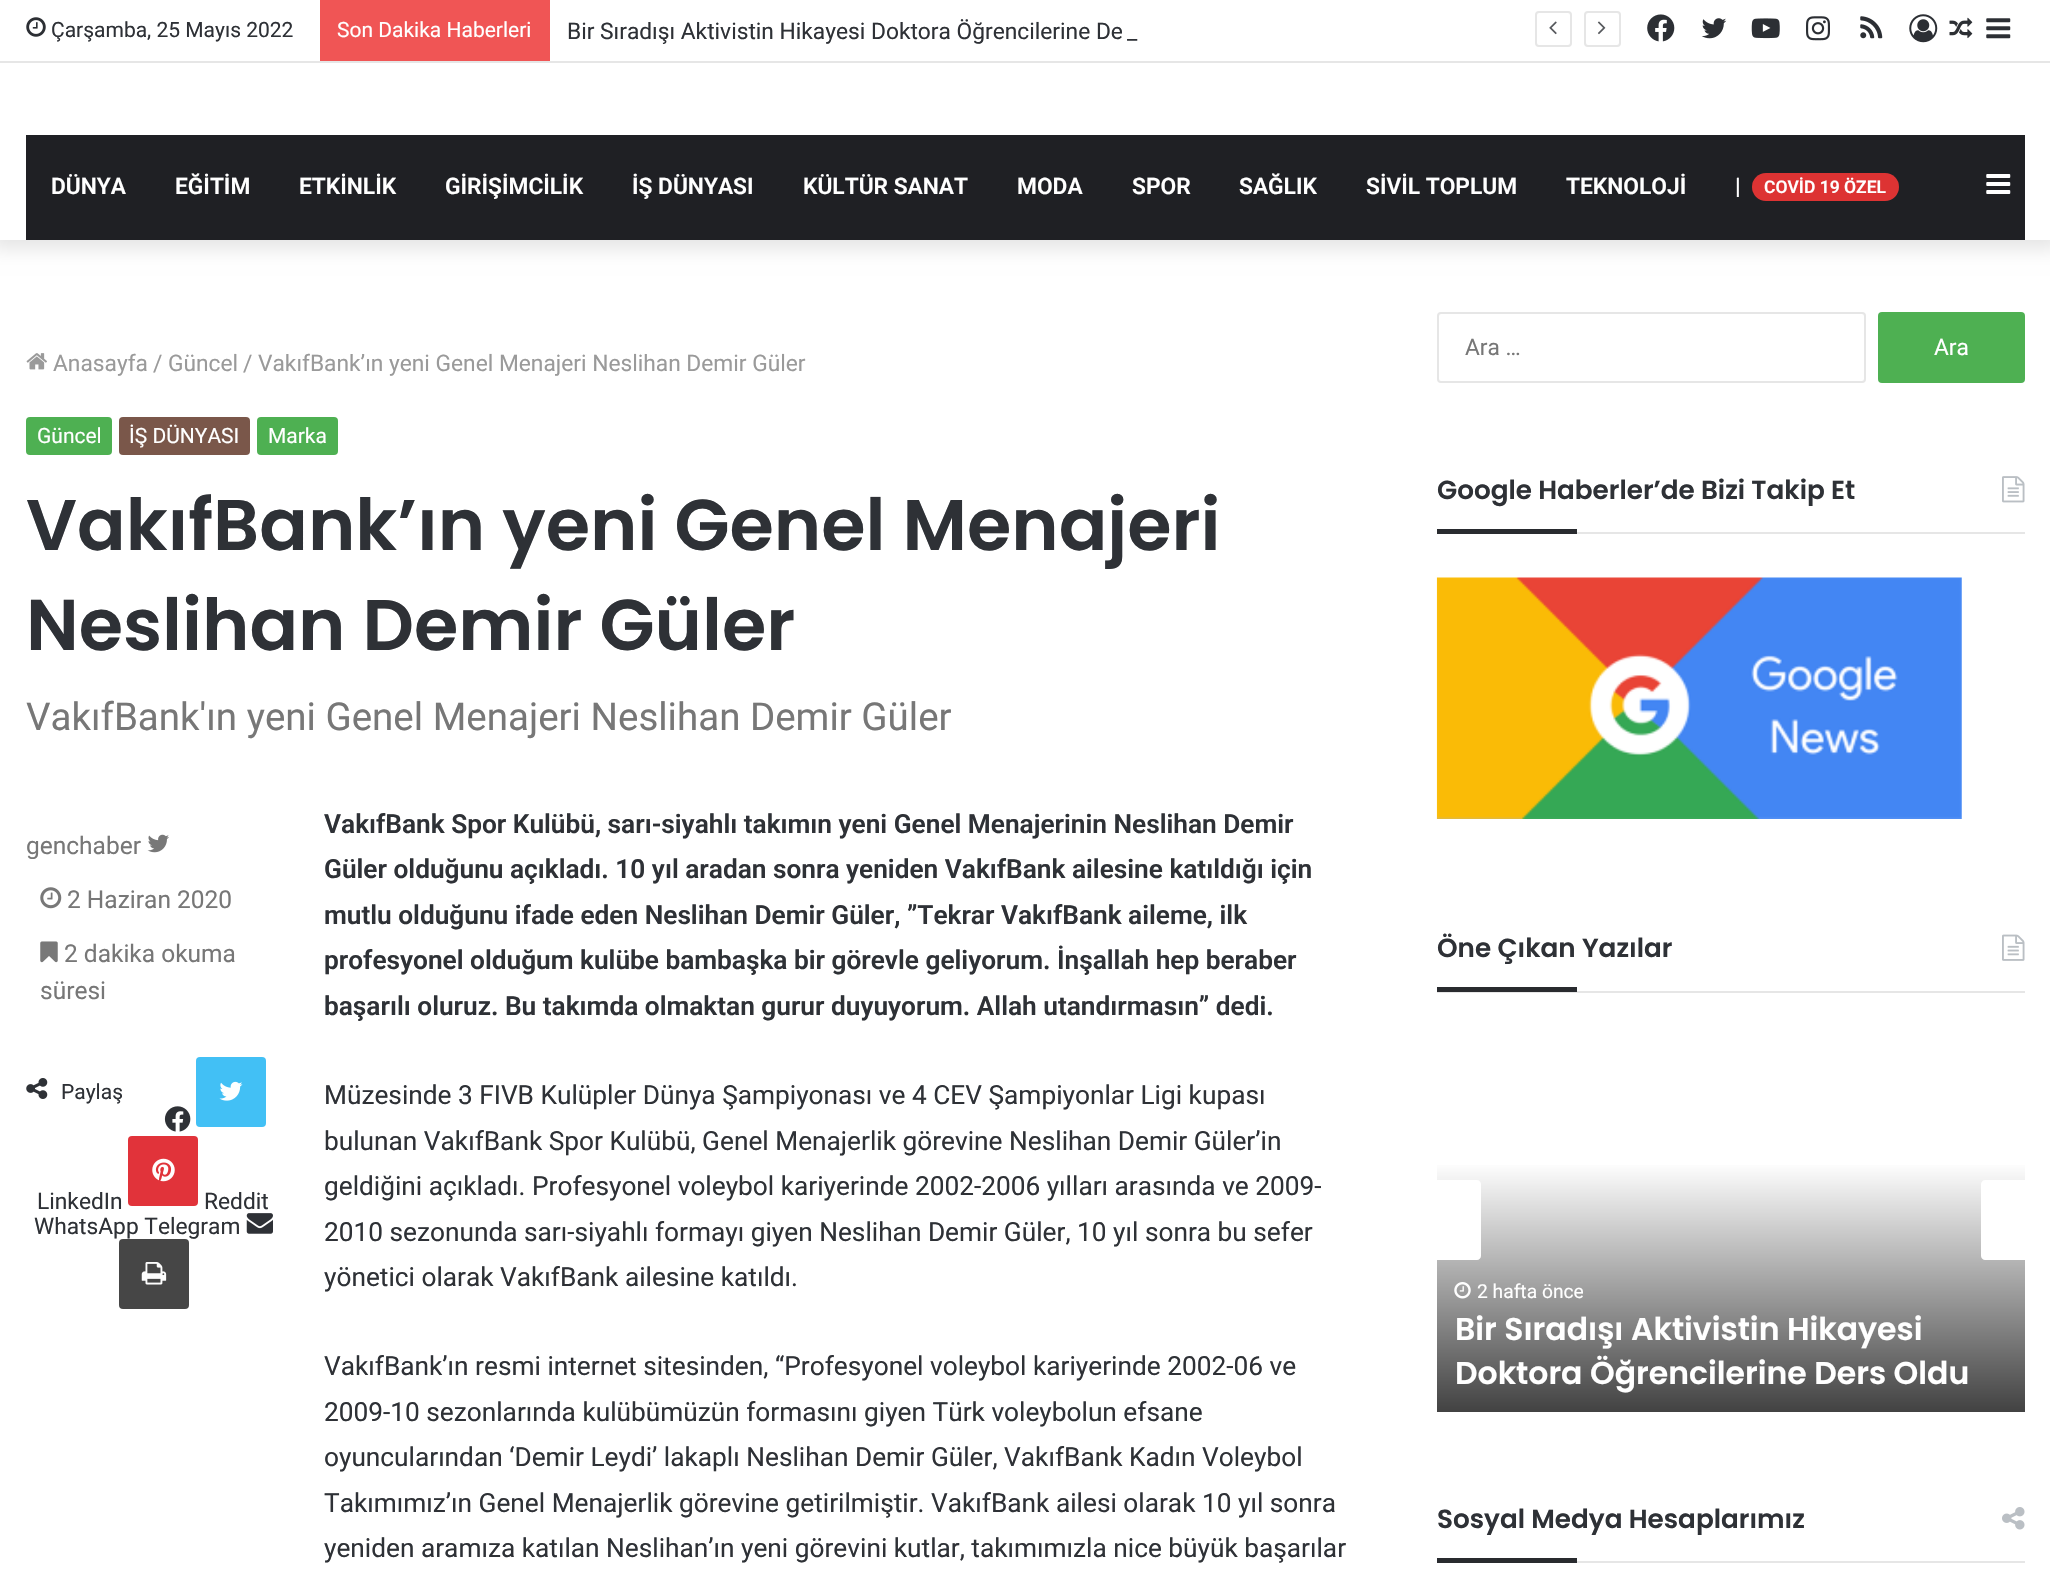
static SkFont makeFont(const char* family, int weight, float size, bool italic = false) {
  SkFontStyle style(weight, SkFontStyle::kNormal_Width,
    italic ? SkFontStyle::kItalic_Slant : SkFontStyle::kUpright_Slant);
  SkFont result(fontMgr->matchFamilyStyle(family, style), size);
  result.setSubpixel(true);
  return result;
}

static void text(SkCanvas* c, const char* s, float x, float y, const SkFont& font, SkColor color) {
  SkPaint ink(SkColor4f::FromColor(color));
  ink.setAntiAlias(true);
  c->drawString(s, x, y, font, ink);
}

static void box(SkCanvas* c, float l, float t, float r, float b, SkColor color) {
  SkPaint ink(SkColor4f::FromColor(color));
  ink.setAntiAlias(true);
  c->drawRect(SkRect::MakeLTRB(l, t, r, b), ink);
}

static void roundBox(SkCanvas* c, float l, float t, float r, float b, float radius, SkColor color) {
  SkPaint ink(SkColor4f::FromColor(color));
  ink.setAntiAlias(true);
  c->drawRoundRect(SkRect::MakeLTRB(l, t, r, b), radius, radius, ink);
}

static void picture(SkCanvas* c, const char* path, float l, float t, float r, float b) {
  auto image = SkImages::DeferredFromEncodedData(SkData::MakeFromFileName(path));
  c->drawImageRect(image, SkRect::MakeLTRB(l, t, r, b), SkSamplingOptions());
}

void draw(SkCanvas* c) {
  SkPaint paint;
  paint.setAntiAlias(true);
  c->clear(0xffffffff);
  paint.setColor(0x1a000000);
  paint.setMaskFilter(SkMaskFilter::MakeBlur(kNormal_SkBlurStyle, 9));
  c->drawRect(SkRect::MakeLTRB(-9, -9, 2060, 249), paint);
  paint.setMaskFilter(nullptr);
  box(c, 0, 0, 2050, 240, 0xffffffff);
  box(c, 0, 61, 2050, 63, 0xffe6e6e6);
  picture(c, "img_01.png", 26, 17, 46, 37);
  SkFont face1 = makeFont("Roboto", 400, 21);
  text(c, "Çarşamba, 25 Mayıs 2022", 51, 37, face1, 0xff2e3136);
  box(c, 320, 0, 550, 61, 0xfff05555);
  text(c, "Son Dakika Haberleri", 337, 37, face1, 0xffffffff);
  SkFont face2 = makeFont("Roboto", 400, 22.75f);
  text(c, "Bir Sıradışı Aktivistin Hikayesi Doktora Öğrencilerine De", 567, 39, face2, 0xff2e3136);
  text(c, "_", 1127, 39, face2, 0xff2e3136);
  paint.setStyle(SkPaint::kStroke_Style);
  paint.setStrokeWidth(2);
  paint.setColor(0xffe6e6e6);
  c->drawRoundRect(SkRect::MakeLTRB(1536, 12, 1571, 46), 3, 3, paint);
  picture(c, "img_02.png", 1549, 21, 1557, 35);
  c->drawRoundRect(SkRect::MakeLTRB(1585, 12, 1620, 46), 3, 3, paint);
  picture(c, "img_03.png", 1597, 21, 1606, 35);
  picture(c, "img_04.png", 1647, 14, 1675, 42);
  picture(c, "img_05.png", 1701, 18, 1727, 39);
  picture(c, "img_06.png", 1751, 18, 1780, 39);
  picture(c, "img_07.png", 1806, 16, 1830, 41);
  picture(c, "img_08.png", 1860, 16, 1883, 39);
  picture(c, "img_09.png", 1909, 14, 1938, 43);
  picture(c, "img_10.png", 1949, 17, 1973, 39);
  picture(c, "img_11.png", 1986, 18, 2011, 39);
  box(c, 26, 135, 2025, 240, 0xff1f2024);
  SkFont face3 = makeFont("Roboto", 600, 22.75f);
  text(c, "DÜNYA", 51, 194, face3, 0xffffffff);
  text(c, "EĞİTİM", 175, 194, face3, 0xffffffff);
  text(c, "ETKİNLİK", 299, 194, face3, 0xffffffff);
  text(c, "GİRİŞİMCİLİK", 445, 194, face3, 0xffffffff);
  text(c, "İŞ DÜNYASI", 632, 194, face3, 0xffffffff);
  text(c, "KÜLTÜR SANAT", 803, 194, face3, 0xffffffff);
  text(c, "MODA", 1017, 194, face3, 0xffffffff);
  text(c, "SPOR", 1132, 194, face3, 0xffffffff);
  text(c, "SAĞLIK", 1239, 194, face3, 0xffffffff);
  text(c, "SİVİL TOPLUM", 1366, 194, face3, 0xffffffff);
  text(c, "TEKNOLOJİ", 1566, 194, face3, 0xffffffff);
  text(c, "|", 1735, 194, face3, 0xffffffff);
  roundBox(c, 1752, 173, 1899, 201, 14, 0xffdd3333);
  SkFont face4 = makeFont("Roboto", 600, 17.5f);
  text(c, "COVİD 19 ÖZEL", 1764, 193, face4, 0xffffffff);
  picture(c, "img_12.png", 1986, 174, 2011, 194);
  picture(c, "img_13.png", 26, 353, 47, 370);
  text(c, "Anasayfa", 53, 371, face2, 0xff9a9a9a);
  text(c, "/", 153, 371, face2, 0xff9a9a9a);
  text(c, "Güncel", 168, 371, face2, 0xff9a9a9a);
  text(c, "/", 243, 371, face2, 0xff9a9a9a);
  text(c, "VakıfBank’ın yeni Genel Menajeri Neslihan Demir Güler", 258, 371, face2, 0xff9a9a9a);
  roundBox(c, 26, 417, 112, 455, 4, 0xff4eb052);
  text(c, "Güncel", 37, 443, face1, 0xffffffff);
  roundBox(c, 119, 417, 250, 455, 4, 0xff7a574a);
  text(c, "İŞ DÜNYASI", 129, 443, face1, 0xffffffff);
  roundBox(c, 257, 417, 338, 455, 4, 0xff4eb052);
  text(c, "Marka", 268, 443, face1, 0xffffffff);
  SkFont face5 = makeFont("Poppins", 600, 71.75f);
  text(c, "VakıfBank’ın yeni Genel Menajeri", 26, 550, face5, 0xff2e3136);
  text(c, "Neslihan Demir Güler", 26, 650, face5, 0xff2e3136);
  SkFont face6 = makeFont("Roboto", 400, 38.5f);
  text(c, "VakıfBank'ın yeni Genel Menajeri Neslihan Demir Güler", 26, 730, face6, 0xff777777);
  SkFont face7 = makeFont("Roboto", 400, 24.5f);
  text(c, "genchaber", 26, 854, face7, 0xff777777);
  picture(c, "img_14.png", 147, 834, 169, 853);
  picture(c, "img_15.png", 40, 887, 62, 909);
  text(c, "2 Haziran 2020", 67, 908, face7, 0xff777777);
  picture(c, "img_16.png", 40, 941, 58, 963);
  text(c, "2 dakika okuma", 64, 962, face7, 0xff777777);
  text(c, "süresi", 40, 999, face7, 0xff777777);
  picture(c, "img_17.png", 26, 1078, 48, 1099);
  text(c, "Paylaş", 61, 1099, face1, 0xff2e3136);
  roundBox(c, 196, 1057, 266, 1127, 4, 0xff42c0f5);
  picture(c, "img_18.png", 219, 1081, 243, 1101);
  picture(c, "img_19.png", 164, 1106, 191, 1132);
  text(c, "LinkedIn", 37, 1209, face2, 0xff2e3136);
  roundBox(c, 128, 1136, 198, 1206, 4, 0xffe1333a);
  picture(c, "img_20.png", 152, 1158, 175, 1182);
  text(c, "Reddit", 204, 1209, face2, 0xff2e3136);
  text(c, "WhatsApp Telegram", 34, 1234, face2, 0xff2e3136);
  picture(c, "img_21.png", 246, 1213, 273, 1234);
  roundBox(c, 119, 1239, 189, 1309, 4, 0xff464646);
  picture(c, "img_22.png", 141, 1262, 167, 1285);
  SkFont face8 = makeFont("Roboto", 600, 26.25f);
  text(c, "VakıfBank Spor Kulübü, sarı-siyahlı takımın yeni Genel Menajerinin Neslihan Demir", 324, 833, face8, 0xff2e3136);
  text(c, "Güler olduğunu açıkladı. 10 yıl aradan sonra yeniden VakıfBank ailesine katıldığı için", 324, 878, face8, 0xff2e3136);
  text(c, "mutlu olduğunu ifade eden Neslihan Demir Güler, ”Tekrar VakıfBank aileme, ilk", 324, 924, face8, 0xff2e3136);
  text(c, "profesyonel olduğum kulübe bambaşka bir görevle geliyorum. İnşallah hep beraber", 324, 969, face8, 0xff2e3136);
  text(c, "başarılı oluruz. Bu takımda olmaktan gurur duyuyorum. Allah utandırmasın” dedi.", 324, 1015, face8, 0xff2e3136);
  SkFont face9 = makeFont("Roboto", 400, 26.25f);
  text(c, "Müzesinde 3 FIVB Kulüpler Dünya Şampiyonası ve 4 CEV Şampiyonlar Ligi kupası", 324, 1104, face9, 0xff2e3136);
  text(c, "bulunan VakıfBank Spor Kulübü, Genel Menajerlik görevine Neslihan Demir Güler’in", 324, 1150, face9, 0xff2e3136);
  text(c, "geldiğini açıkladı. Profesyonel voleybol kariyerinde 2002-2006 yılları arasında ve 2009-", 324, 1195, face9, 0xff2e3136);
  text(c, "2010 sezonunda sarı-siyahlı formayı giyen Neslihan Demir Güler, 10 yıl sonra bu sefer", 324, 1241, face9, 0xff2e3136);
  text(c, "yönetici olarak VakıfBank ailesine katıldı.", 324, 1286, face9, 0xff2e3136);
  text(c, "VakıfBank’ın resmi internet sitesinden, “Profesyonel voleybol kariyerinde 2002-06 ve", 324, 1375, face9, 0xff2e3136);
  text(c, "2009-10 sezonlarında kulübümüzün formasını giyen Türk voleybolun efsane", 324, 1421, face9, 0xff2e3136);
  text(c, "oyuncularından ‘Demir Leydi’ lakaplı Neslihan Demir Güler, VakıfBank Kadın Voleybol", 324, 1466, face9, 0xff2e3136);
  text(c, "Takımımız’ın Genel Menajerlik görevine getirilmiştir. VakıfBank ailesi olarak 10 yıl sonra", 324, 1512, face9, 0xff2e3136);
  text(c, "yeniden aramıza katılan Neslihan’ın yeni görevini kutlar, takımımızla nice büyük başarılar", 324, 1557, face9, 0xff2e3136);
  c->drawRoundRect(SkRect::MakeLTRB(1438, 313, 1865, 382), 3, 3, paint);
  text(c, "Ara …", 1465, 355, face2, 0xff777777);
  roundBox(c, 1878, 312, 2025, 383, 4, 0xff4eb052);
  text(c, "Ara", 1934, 355, face2, 0xffffffff);
  box(c, 1577, 532, 2025, 534, 0xffe6e6e6);
  SkFont face10 = makeFont("Poppins", 600, 26.25f);
  text(c, "Google Haberler’de Bizi Takip Et", 1437, 499, face10, 0xff2e3136);
  picture(c, "img_23.png", 2002, 476, 2025, 503);
  box(c, 1437, 529, 1577, 534, 0xff292b2f);
  picture(c, "img_24.png", 1436, 577, 1962, 819);
  box(c, 1437, 991, 2025, 993, 0xffe6e6e6);
  text(c, "Öne Çıkan Yazılar", 1437, 957, face10, 0xff2e3136);
  picture(c, "img_25.png", 2002, 934, 2025, 961);
  box(c, 1437, 987, 1577, 992, 0xff292b2f);
  paint.setStyle(SkPaint::kFill_Style);
  {
    const SkColor colors[] = {0xffffffff, 0xff424242};
    const float stops[] = {0, 1};
    const SkPoint ends[] = {{1731, 1162}, {1731, 1412}};
    paint.setShader(SkGradientShader::MakeLinear(ends, colors, stops, 2, SkTileMode::kClamp));
    paint.setAlpha(255);
  }
  c->drawRect(SkRect::MakeLTRB(1437, 1165, 2025, 1412), paint);
  paint.setShader(nullptr);
  paint.setColor(0xffffffff);
  c->drawPath(SkPathBuilder().moveTo(1437, 1180).lineTo(1477, 1180).cubicTo(1479, 1180, 1481, 1182, 1481, 1184).lineTo(1481, 1256).cubicTo(1481, 1258, 1479, 1260, 1477, 1260).lineTo(1437, 1260).close().detach(), paint);
  c->drawPath(SkPathBuilder().moveTo(1985, 1180).lineTo(2025, 1180).lineTo(2025, 1260).lineTo(1985, 1260).cubicTo(1983, 1260, 1981, 1258, 1981, 1256).lineTo(1981, 1184).cubicTo(1981, 1182, 1983, 1180, 1985, 1180).close().detach(), paint);
  picture(c, "img_26.png", 1454, 1282, 1471, 1299);
  SkFont face11 = makeFont("Roboto", 400, 19.25f);
  text(c, "2 hafta önce", 1477, 1298, face11, 0xffffffff);
  SkFont face12 = makeFont("Poppins", 600, 31.5f);
  text(c, "Bir Sıradışı Aktivistin Hikayesi", 1455, 1340, face12, 0xffffffff);
  text(c, "Doktora Öğrencilerine Ders Oldu", 1455, 1384, face12, 0xffffffff);
  box(c, 1577, 1561, 2025, 1563, 0xffe6e6e6);
  text(c, "Sosyal Medya Hesaplarımız", 1437, 1528, face10, 0xff2e3136);
  picture(c, "img_27.png", 2002, 1507, 2025, 1530);
  box(c, 1437, 1558, 1577, 1563, 0xff292b2f);
}
